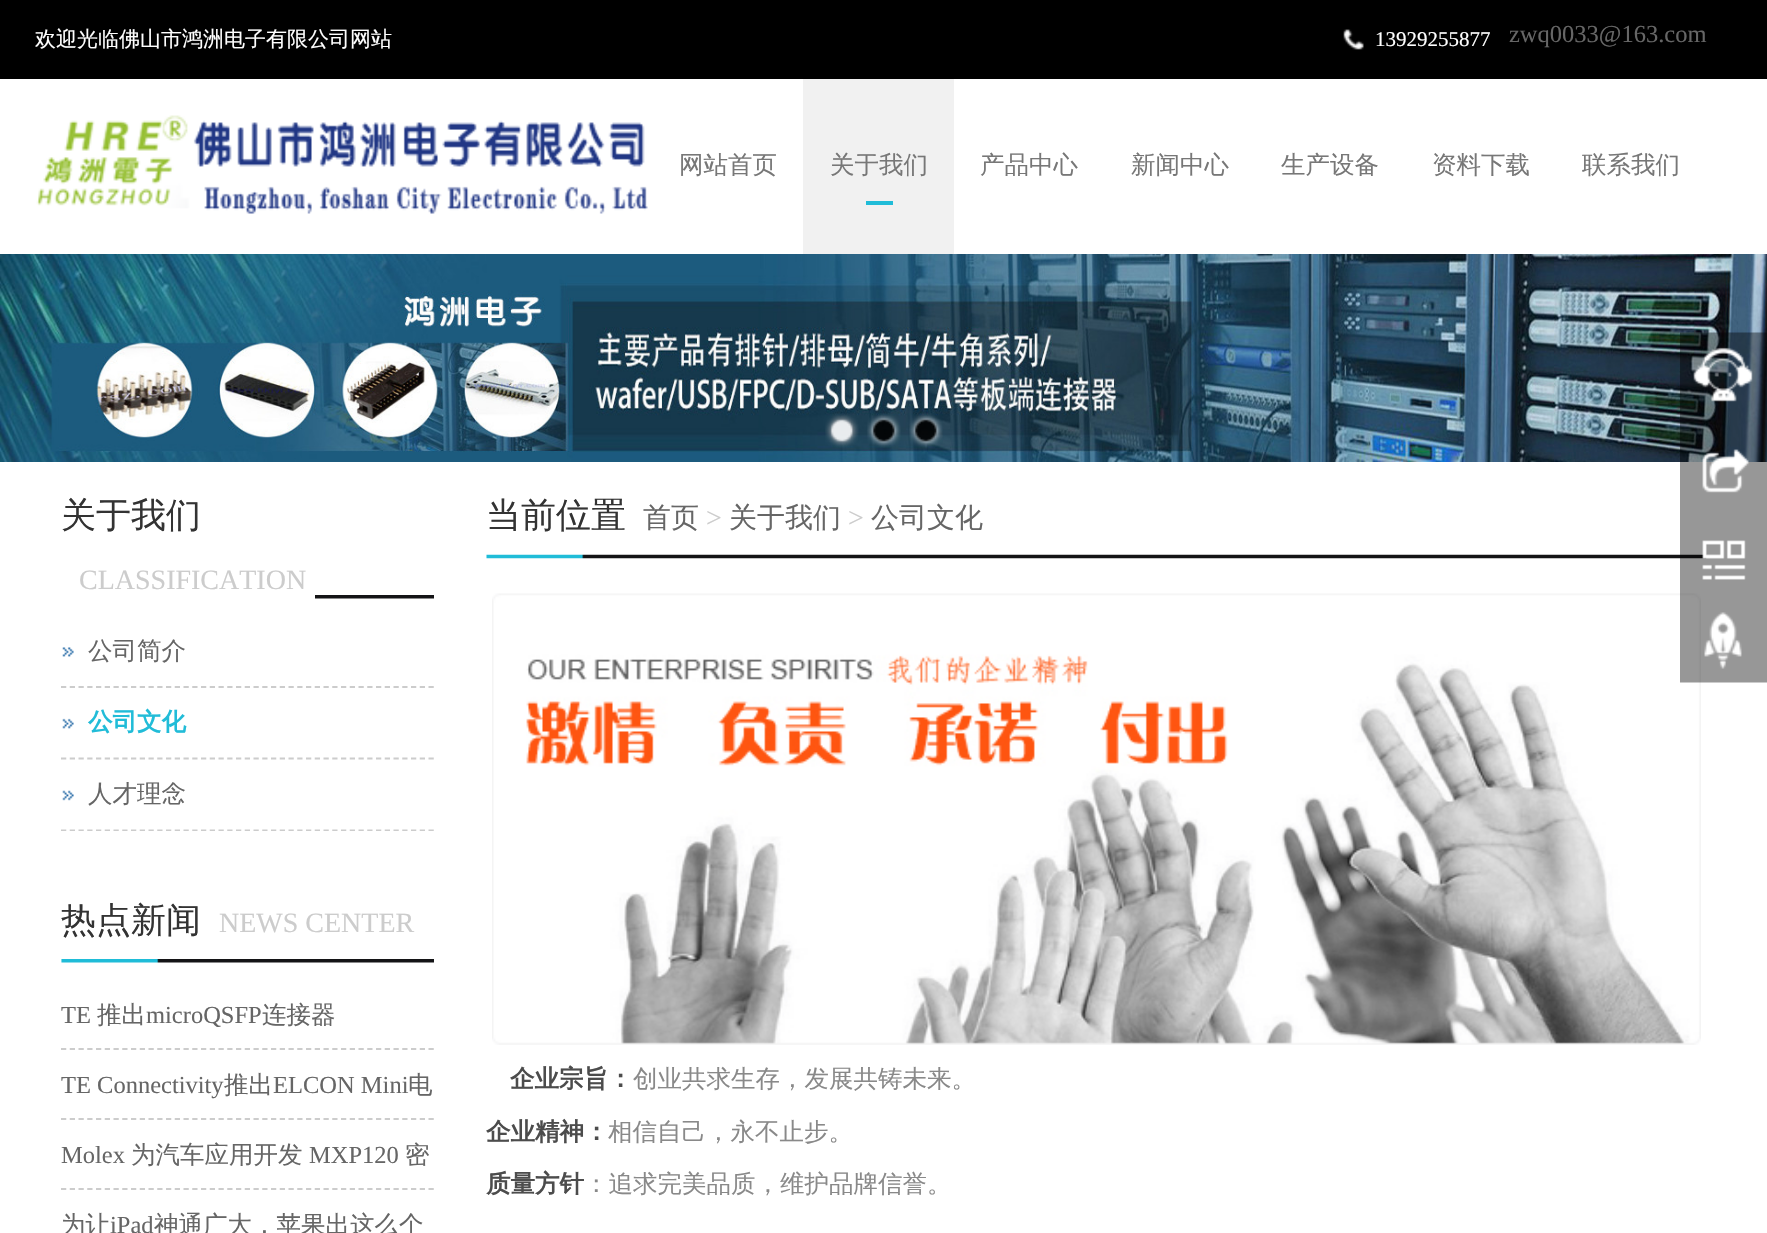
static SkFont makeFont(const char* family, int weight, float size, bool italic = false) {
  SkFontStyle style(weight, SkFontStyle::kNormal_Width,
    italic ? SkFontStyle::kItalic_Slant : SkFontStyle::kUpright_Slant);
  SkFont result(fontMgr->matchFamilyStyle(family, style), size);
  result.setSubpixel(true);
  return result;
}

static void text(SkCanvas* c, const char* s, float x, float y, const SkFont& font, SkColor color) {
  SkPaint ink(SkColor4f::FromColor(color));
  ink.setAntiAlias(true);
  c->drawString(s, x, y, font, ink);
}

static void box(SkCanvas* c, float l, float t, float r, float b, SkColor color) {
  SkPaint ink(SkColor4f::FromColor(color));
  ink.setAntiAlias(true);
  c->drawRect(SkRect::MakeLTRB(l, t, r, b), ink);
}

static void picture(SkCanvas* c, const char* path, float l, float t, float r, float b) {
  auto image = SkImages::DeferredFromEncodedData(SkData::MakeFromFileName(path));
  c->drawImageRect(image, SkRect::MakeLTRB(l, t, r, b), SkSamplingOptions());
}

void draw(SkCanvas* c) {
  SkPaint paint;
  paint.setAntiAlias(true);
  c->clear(0xffffffff);
  box(c, 0, 0, 1767, 79, 0xff000000);
  SkFont face1 = makeFont("WenQuanYi Zen Hei", 500, 21);
  text(c, "欢迎光临佛山市鸿洲电子有限公司网站", 35, 46, face1, 0xffffffff);
  picture(c, "img_01.png", 1343, 29, 1364, 50);
  SkFont face2 = makeFont("Liberation Serif", 400, 21);
  text(c, "13929255877", 1375, 46, face2, 0xffffffff);
  SkFont face3 = makeFont("Liberation Serif", 400, 24.5f);
  text(c, "zwq0033@163.com", 1509, 42, face3, 0xff666666);
  picture(c, "img_02.png", 36, 115, 648, 214);
  SkFont face4 = makeFont("WenQuanYi Zen Hei", 500, 24.5f);
  text(c, "网站首页", 679, 173, face4, 0xff777777);
  box(c, 803, 79, 954, 254, 0xfff1f1f1);
  box(c, 866, 201, 893, 205, 0xff20bcd8);
  text(c, "关于我们", 830, 173, face4, 0xff777777);
  text(c, "产品中心", 980, 173, face4, 0xff777777);
  text(c, "新闻中心", 1131, 173, face4, 0xff777777);
  text(c, "生产设备", 1281, 173, face4, 0xff777777);
  text(c, "资料下载", 1432, 173, face4, 0xff777777);
  text(c, "联系我们", 1582, 173, face4, 0xff777777);
  picture(c, "img_03.png", 0, 254, 1767, 462);
  picture(c, "img_04.png", 825, 413, 859, 448);
  picture(c, "img_05.png", 867, 413, 901, 448);
  picture(c, "img_06.png", 909, 413, 943, 448);
  picture(c, "img_07.png", 315, 595, 434, 599);
  SkFont face5 = makeFont("WenQuanYi Zen Hei", 500, 35);
  text(c, "关于我们", 61, 527, face5, 0xff333333);
  SkFont face6 = makeFont("Liberation Serif", 400, 28);
  text(c, "CLASSIFICATION", 79, 589, face6, 0xffcccccc);
  picture(c, "img_08.png", 62, 647, 74, 657);
  paint.setStyle(SkPaint::kStroke_Style);
  paint.setStrokeWidth(1.8f);
  paint.setColor(0xffcccccc);
  paint.setPathEffect(SkDashPathEffect::Make({{5.25f, 3.5f}}, 0));
  c->drawPath(SkPathBuilder().moveTo(61, 687).lineTo(434, 687).detach(), paint);
  paint.setPathEffect(nullptr);
  text(c, "公司简介", 88, 659, face4, 0xff666666);
  picture(c, "img_09.png", 62, 718, 74, 729);
  paint.setPathEffect(SkDashPathEffect::Make({{5.25f, 3.5f}}, 0));
  c->drawPath(SkPathBuilder().moveTo(61, 758.5f).lineTo(434, 758.5f).detach(), paint);
  paint.setPathEffect(nullptr);
  SkFont face7 = makeFont("WenQuanYi Zen Hei", 700, 24.5f);
  text(c, "公司文化", 88, 730, face7, 0xff21bcd8);
  picture(c, "img_10.png", 62, 790, 74, 801);
  c->save();
  c->clipRect(SkRect::MakeLTRB(61, 616, 434, 831));
  paint.setPathEffect(SkDashPathEffect::Make({{5.25f, 3.5f}}, 0));
  c->drawPath(SkPathBuilder().moveTo(61, 830.5f).lineTo(434, 830.5f).detach(), paint);
  paint.setPathEffect(nullptr);
  c->restore();
  text(c, "人才理念", 88, 802, face4, 0xff666666);
  picture(c, "img_11.png", 61, 959, 434, 963);
  text(c, "热点新闻", 61, 932, face5, 0xff333333);
  text(c, "NEWS CENTER", 219, 932, face6, 0xffcccccc);
  paint.setPathEffect(SkDashPathEffect::Make({{5.25f, 3.5f}}, 0));
  c->drawPath(SkPathBuilder().moveTo(61, 1049).lineTo(434, 1049).detach(), paint);
  paint.setPathEffect(nullptr);
  text(c, "TE", 61, 1023, face3, 0xff666666);
  text(c, "推出", 97, 1023, face4, 0xff666666);
  text(c, "microQSFP", 146, 1023, face3, 0xff666666);
  text(c, "连接器", 262, 1023, face4, 0xff666666);
  paint.setPathEffect(SkDashPathEffect::Make({{5.25f, 3.5f}}, 0));
  c->drawPath(SkPathBuilder().moveTo(61, 1119).lineTo(434, 1119).detach(), paint);
  paint.setPathEffect(nullptr);
  text(c, "TE Connectivity", 61, 1093, face3, 0xff666666);
  text(c, "推出", 224, 1093, face4, 0xff666666);
  text(c, "ELCON Mini", 273, 1093, face3, 0xff666666);
  text(c, "电", 408, 1093, face4, 0xff666666);
  paint.setPathEffect(SkDashPathEffect::Make({{5.25f, 3.5f}}, 0));
  c->drawPath(SkPathBuilder().moveTo(61, 1189).lineTo(434, 1189).detach(), paint);
  paint.setPathEffect(nullptr);
  text(c, "Molex", 61, 1163, face3, 0xff666666);
  text(c, "为汽车应用开发", 131, 1163, face4, 0xff666666);
  text(c, "MXP120", 309, 1163, face3, 0xff666666);
  text(c, "密", 405, 1163, face4, 0xff666666);
  text(c, "为让", 61, 1233, face4, 0xff666666);
  text(c, "iPad", 110, 1233, face3, 0xff666666);
  text(c, "神通广大，苹果出这么个", 154, 1233, face4, 0xff666666);
  picture(c, "img_12.png", 486, 554, 1707, 559);
  text(c, "当前位置", 486, 527, face5, 0xff333333);
  SkFont face8 = makeFont("WenQuanYi Zen Hei", 500, 28);
  text(c, "首页", 643, 527, face8, 0xff666666);
  text(c, ">", 706, 527, face6, 0xffcccccc);
  text(c, "关于我们", 729, 527, face8, 0xff666666);
  text(c, ">", 848, 527, face6, 0xffcccccc);
  text(c, "公司文化", 871, 527, face8, 0xff666666);
  picture(c, "img_13.png", 492, 593, 1701, 1045);
  text(c, "企业宗旨：", 510, 1087, face7, 0xff4c4c4c);
  text(c, "创业共求生存，发展共铸未来。", 633, 1087, face4, 0xff898989);
  text(c, "企业精神：", 486, 1140, face7, 0xff4c4c4c);
  text(c, "相信自己，永不止步。", 608, 1140, face4, 0xff898989);
  text(c, "质量方针", 486, 1192, face7, 0xff4c4c4c);
  text(c, "：追求完美品质，维护品牌信誉。", 584, 1192, face4, 0xff898989);
  picture(c, "img_14.png", 1680, 332, 1767, 683);
}
